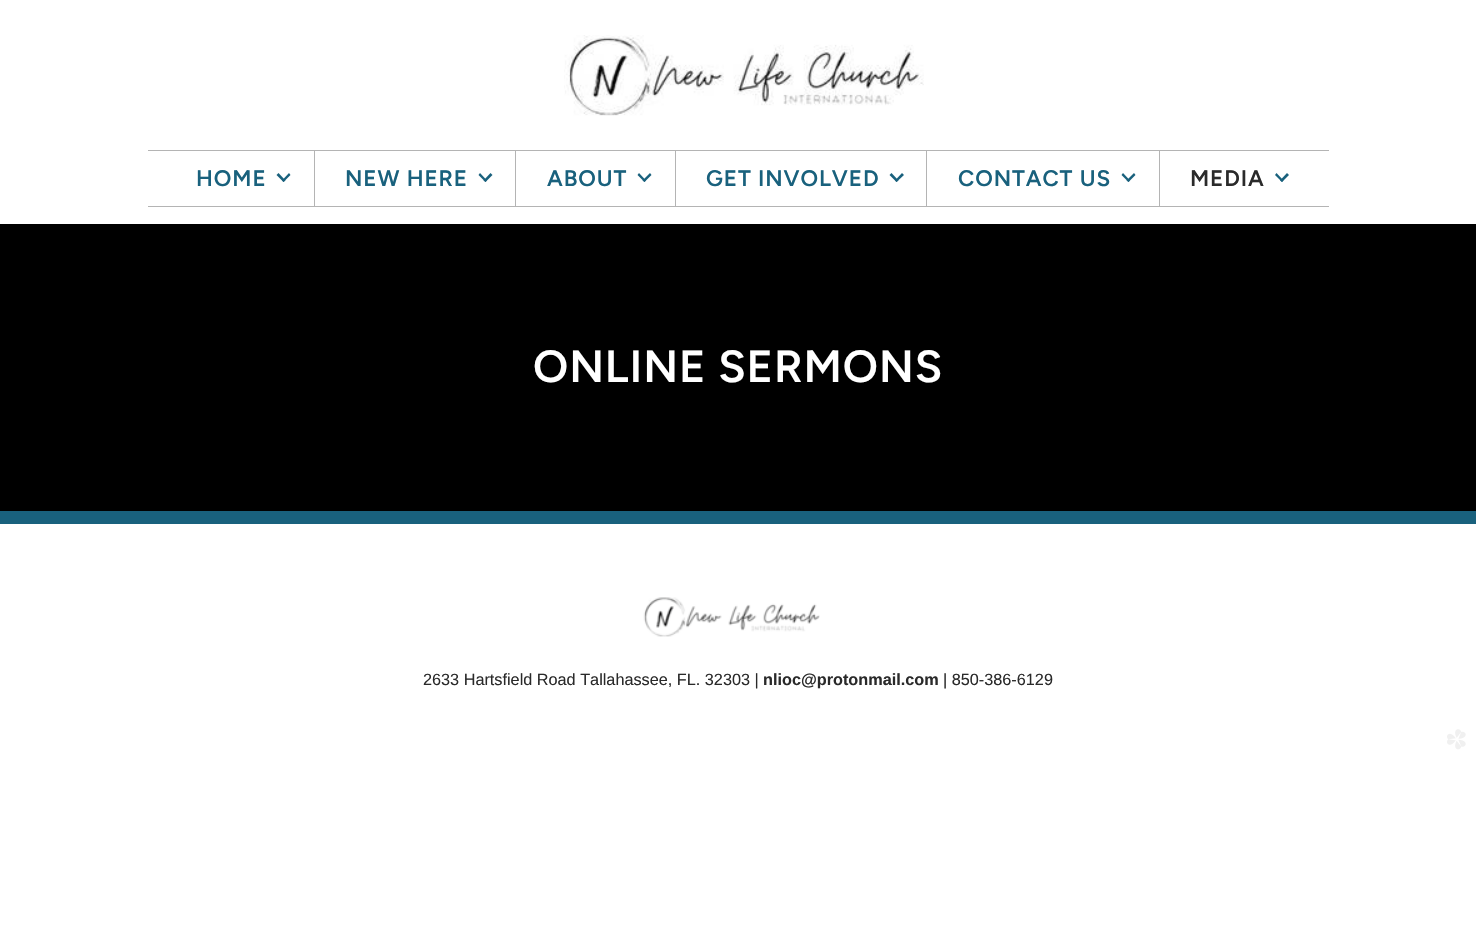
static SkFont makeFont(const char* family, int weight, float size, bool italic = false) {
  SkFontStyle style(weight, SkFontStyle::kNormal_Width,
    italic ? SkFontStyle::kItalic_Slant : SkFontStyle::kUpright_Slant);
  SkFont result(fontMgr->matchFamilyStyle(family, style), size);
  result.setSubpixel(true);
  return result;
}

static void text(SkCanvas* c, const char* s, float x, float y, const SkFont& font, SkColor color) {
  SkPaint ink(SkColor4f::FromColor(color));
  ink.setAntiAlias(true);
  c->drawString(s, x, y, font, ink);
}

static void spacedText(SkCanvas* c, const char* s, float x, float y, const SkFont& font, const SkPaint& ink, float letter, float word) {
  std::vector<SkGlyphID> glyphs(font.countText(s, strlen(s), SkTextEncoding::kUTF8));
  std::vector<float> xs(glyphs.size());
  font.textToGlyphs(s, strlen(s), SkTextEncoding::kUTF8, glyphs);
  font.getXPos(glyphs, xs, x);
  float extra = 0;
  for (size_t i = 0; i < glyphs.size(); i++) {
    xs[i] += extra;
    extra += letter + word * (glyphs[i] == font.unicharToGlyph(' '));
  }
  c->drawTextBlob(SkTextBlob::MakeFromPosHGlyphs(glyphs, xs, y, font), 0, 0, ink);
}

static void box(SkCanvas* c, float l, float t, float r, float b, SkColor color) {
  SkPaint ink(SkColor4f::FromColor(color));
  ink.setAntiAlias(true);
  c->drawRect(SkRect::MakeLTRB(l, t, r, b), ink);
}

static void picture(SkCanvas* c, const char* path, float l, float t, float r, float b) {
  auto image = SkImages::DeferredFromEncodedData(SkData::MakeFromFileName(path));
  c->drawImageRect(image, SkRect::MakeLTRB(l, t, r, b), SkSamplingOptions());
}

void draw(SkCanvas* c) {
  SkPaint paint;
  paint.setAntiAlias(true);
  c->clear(0xffffffff);
  picture(c, "img_01.png", 564, 35, 924, 116);
  box(c, 148, 150, 1329, 151, 0xffb4b4b4);
  box(c, 148, 206, 1329, 207, 0xffb4b4b4);
  SkFont face1 = makeFont("Figtree", 600, 22.5f);
  paint.setColor(0xff19617d);
  spacedText(c, "HOME", 196, 186, face1, paint, 0.9f, 0);
  c->drawPath(SkPathBuilder().moveTo(289, 173).lineTo(290.5f, 175).lineTo(283.5f, 182).lineTo(282, 180.5f).close().detach(), paint);
  c->drawPath(SkPathBuilder().moveTo(278.5f, 173).lineTo(285.5f, 180.5f).lineTo(283.5f, 182).lineTo(276.5f, 175).close().detach(), paint);
  box(c, 314, 151, 315, 206, 0xffb4b4b4);
  spacedText(c, "NEW HERE", 345, 186, face1, paint, 0.9f, 0);
  c->drawPath(SkPathBuilder().moveTo(490.5f, 173).lineTo(492.5f, 175).lineTo(485.5f, 182).lineTo(483.5f, 180.5f).close().detach(), paint);
  c->drawPath(SkPathBuilder().moveTo(480, 173).lineTo(487, 180.5f).lineTo(485.5f, 182).lineTo(478.5f, 175).close().detach(), paint);
  box(c, 515, 151, 516, 206, 0xffb4b4b4);
  spacedText(c, "ABOUT", 547, 186, face1, paint, 0.9f, 0);
  c->drawPath(SkPathBuilder().moveTo(650, 173).lineTo(651.5f, 175).lineTo(644.5f, 182).lineTo(642.5f, 180.5f).close().detach(), paint);
  c->drawPath(SkPathBuilder().moveTo(639, 173).lineTo(646, 180.5f).lineTo(644.5f, 182).lineTo(637.5f, 175).close().detach(), paint);
  box(c, 675, 151, 676, 206, 0xffb4b4b4);
  spacedText(c, "GET INVOLVED", 706, 186, face1, paint, 0.9f, 0);
  c->drawPath(SkPathBuilder().moveTo(902, 173).lineTo(904, 175).lineTo(896.5f, 182).lineTo(895, 180.5f).close().detach(), paint);
  c->drawPath(SkPathBuilder().moveTo(891.5f, 173).lineTo(898.5f, 180.5f).lineTo(896.5f, 182).lineTo(889.5f, 175).close().detach(), paint);
  box(c, 926, 151, 927, 206, 0xffb4b4b4);
  spacedText(c, "CONTACT US", 958, 186, face1, paint, 0.9f, 0);
  c->drawPath(SkPathBuilder().moveTo(1134, 173).lineTo(1135.5f, 175).lineTo(1128.5f, 182).lineTo(1126.5f, 180.5f).close().detach(), paint);
  c->drawPath(SkPathBuilder().moveTo(1123, 173).lineTo(1130, 180.5f).lineTo(1128.5f, 182).lineTo(1121.5f, 175).close().detach(), paint);
  box(c, 1159, 151, 1160, 206, 0xffb4b4b4);
  paint.setColor(0xff2a2a2a);
  spacedText(c, "MEDIA", 1190, 186, face1, paint, 0.9f, 0);
  paint.setColor(0xff19617d);
  c->drawPath(SkPathBuilder().moveTo(1287, 173).lineTo(1289, 175).lineTo(1282, 182).lineTo(1280, 180.5f).close().detach(), paint);
  c->drawPath(SkPathBuilder().moveTo(1276.5f, 173).lineTo(1283.5f, 180.5f).lineTo(1282, 182).lineTo(1275, 175).close().detach(), paint);
  box(c, 0, 224, 1476, 511, 0xff000000);
  SkFont face2 = makeFont("Figtree", 600, 45);
  paint.setColor(0xffffffff);
  spacedText(c, "ONLINE SERMONS", 533, 382, face2, paint, 0.9f, 0);
  box(c, 0, 511, 1476, 524, 0xff19617d);
  picture(c, "img_02.png", 643, 597, 820, 637);
  SkFont face3 = makeFont("Liberation Sans", 400, 16.25f);
  text(c, "2633 Hartsfield Road Tallahassee, FL. 32303 |", 423, 685, face3, 0xff2a2a2a);
  SkFont face4 = makeFont("Liberation Sans", 700, 16.25f);
  text(c, "nlioc@protonmail.com", 763, 685, face4, 0xff2a2a2a);
  text(c, "| 850-386-6129", 943, 685, face3, 0xff2a2a2a);
  picture(c, "img_03.png", 1447, 729, 1466, 750);
}
